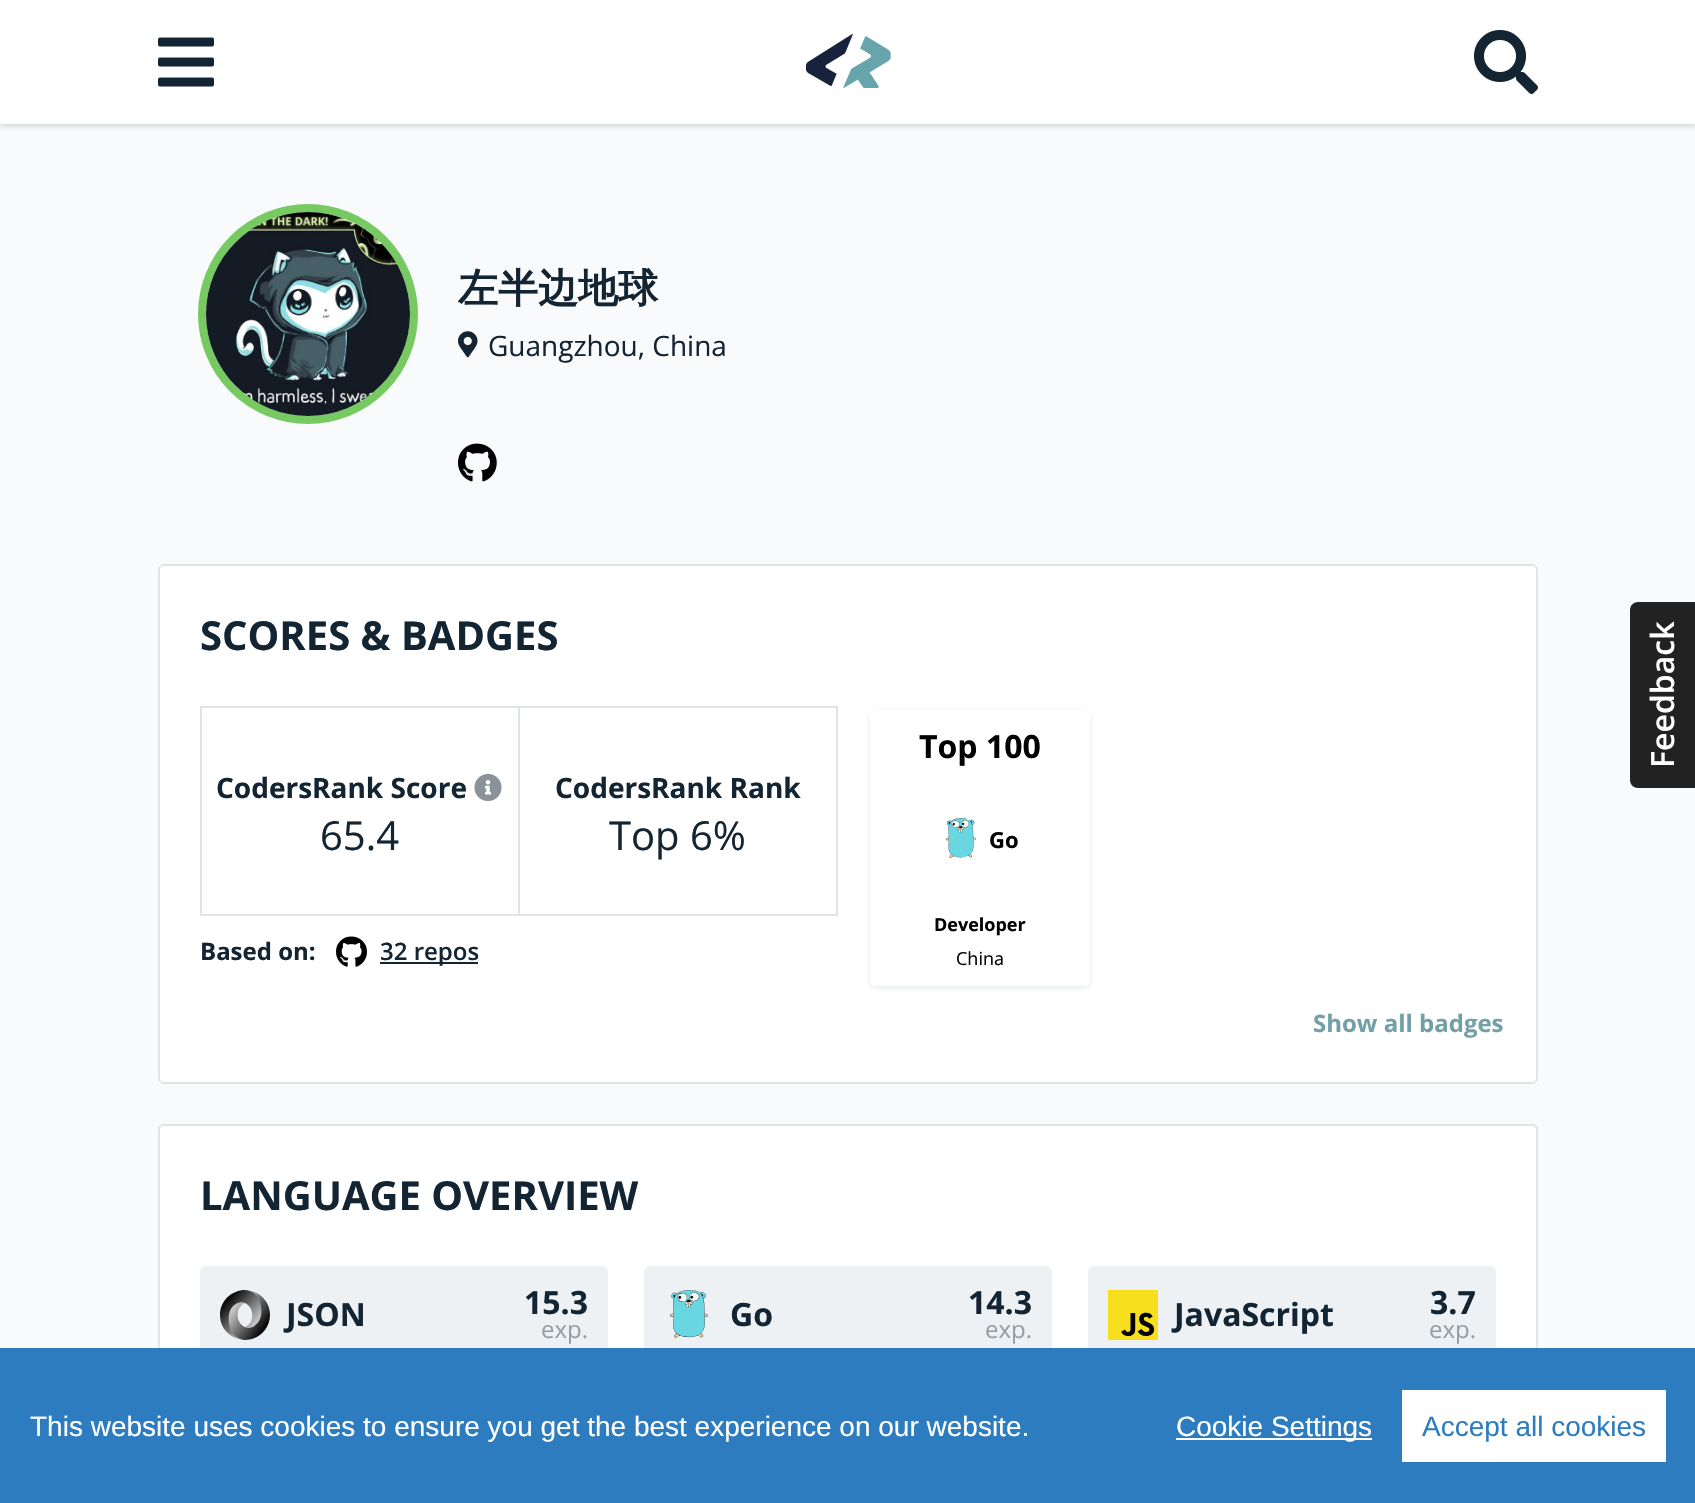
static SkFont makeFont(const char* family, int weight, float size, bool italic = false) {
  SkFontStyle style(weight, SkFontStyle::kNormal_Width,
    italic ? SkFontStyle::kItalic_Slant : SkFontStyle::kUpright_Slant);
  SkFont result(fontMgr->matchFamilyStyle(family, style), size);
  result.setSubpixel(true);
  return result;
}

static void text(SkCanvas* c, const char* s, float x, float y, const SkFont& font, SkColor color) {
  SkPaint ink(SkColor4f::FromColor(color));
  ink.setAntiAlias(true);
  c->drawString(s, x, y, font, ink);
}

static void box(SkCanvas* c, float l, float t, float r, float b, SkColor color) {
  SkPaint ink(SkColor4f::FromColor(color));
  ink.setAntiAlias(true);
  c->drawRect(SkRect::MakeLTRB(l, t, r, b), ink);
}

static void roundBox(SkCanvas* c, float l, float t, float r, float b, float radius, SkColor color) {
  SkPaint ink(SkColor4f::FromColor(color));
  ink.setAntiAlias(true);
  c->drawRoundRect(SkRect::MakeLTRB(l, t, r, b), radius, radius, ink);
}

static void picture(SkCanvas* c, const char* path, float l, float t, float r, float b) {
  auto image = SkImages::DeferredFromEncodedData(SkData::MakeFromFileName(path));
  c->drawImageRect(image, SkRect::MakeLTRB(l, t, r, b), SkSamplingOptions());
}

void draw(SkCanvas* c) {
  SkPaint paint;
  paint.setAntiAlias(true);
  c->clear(0xfff9fafb);
  paint.setColor(0x330a3236);
  paint.setMaskFilter(SkMaskFilter::MakeBlur(kNormal_SkBlurStyle, 3));
  c->drawRect(SkRect::MakeLTRB(0, 2, 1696, 126), paint);
  paint.setMaskFilter(nullptr);
  box(c, 0, 0, 1695, 124, 0xffffffff);
  picture(c, "img_01.png", 158, 37, 214, 87);
  picture(c, "img_02.png", 806, 34, 891, 89);
  picture(c, "img_03.png", 1474, 30, 1538, 94);
  paint.setColor(0xffffffff);
  c->drawCircle(308, 314, 106, paint);
  paint.setStyle(SkPaint::kStroke_Style);
  paint.setStrokeWidth(8);
  paint.setColor(0xff76ca61);
  c->drawCircle(308, 314, 106, paint);
  picture(c, "img_04.png", 206, 212, 410, 416);
  SkFont face1 = makeFont("WenQuanYi Zen Hei", 700, 40);
  text(c, "左半边地球", 458, 302, face1, 0xff132433);
  picture(c, "img_05.png", 458, 331, 478, 358);
  SkFont face2 = makeFont("Open Sans", 400, 28);
  text(c, "Guangzhou, China", 488, 356, face2, 0xff132433);
  picture(c, "img_06.png", 458, 443, 497, 482);
  paint.setStyle(SkPaint::kFill_Style);
  paint.setColor(0xffffffff);
  c->drawRoundRect(SkRect::MakeLTRB(159, 565, 1537, 1083), 5, 5, paint);
  paint.setStyle(SkPaint::kStroke_Style);
  paint.setStrokeWidth(2);
  paint.setColor(0xffe0e4e5);
  c->drawRoundRect(SkRect::MakeLTRB(159, 565, 1537, 1083), 5, 5, paint);
  SkFont face3 = makeFont("Open Sans", 700, 40);
  text(c, "SCORES & BADGES", 200, 650, face3, 0xff132433);
  c->drawRect(SkRect::MakeLTRB(201, 707, 837, 915), paint);
  box(c, 518, 708, 520, 914, 0xffe0e4e5);
  SkFont face4 = makeFont("Open Sans", 700, 28);
  text(c, "CodersRank Score", 216, 798, face4, 0xff132433);
  picture(c, "img_07.png", 474, 774, 502, 801);
  SkFont face5 = makeFont("Open Sans", 400, 40);
  text(c, "65.4", 320, 850, face5, 0xff132433);
  text(c, "CodersRank Rank", 555, 798, face4, 0xff132433);
  text(c, "Top 6%", 609, 850, face5, 0xff132433);
  SkFont face6 = makeFont("Open Sans", 700, 24);
  text(c, "Based on:", 200, 960, face6, 0xff132433);
  picture(c, "img_08.png", 336, 936, 367, 967);
  box(c, 380, 962, 478, 964, 0xff132433);
  SkFont face7 = makeFont("Open Sans", 600, 24);
  text(c, "32 repos", 380, 960, face7, 0xff132433);
  paint.setStyle(SkPaint::kFill_Style);
  paint.setColor(0x1a0a3236);
  paint.setMaskFilter(SkMaskFilter::MakeBlur(kNormal_SkBlurStyle, 3));
  c->drawRoundRect(SkRect::MakeLTRB(870, 712, 1090, 988), 6, 6, paint);
  paint.setMaskFilter(nullptr);
  roundBox(c, 870, 710, 1090, 986, 6, 0xffffffff);
  SkFont face8 = makeFont("Open Sans", 700, 32);
  text(c, "Top 100", 919, 758, face8, 0xff000000);
  picture(c, "img_09.png", 946, 818, 976, 858);
  SkFont face9 = makeFont("Open Sans", 700, 22);
  text(c, "Go", 989, 848, face9, 0xff000000);
  SkFont face10 = makeFont("Open Sans", 700, 18);
  text(c, "Developer", 934, 931, face10, 0xff000000);
  SkFont face11 = makeFont("Open Sans", 400, 18);
  text(c, "China", 956, 965, face11, 0xff000000);
  text(c, "Show all badges", 1313, 1032, face6, 0xff72a0a8);
  paint.setColor(0xffffffff);
  c->drawPath(SkPathBuilder().moveTo(164, 1125).lineTo(1532, 1125).cubicTo(1535, 1125, 1537, 1127, 1537, 1130).lineTo(1537, 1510).lineTo(159, 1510).lineTo(159, 1130).cubicTo(159, 1127, 161, 1125, 164, 1125).close().detach(), paint);
  paint.setStyle(SkPaint::kStroke_Style);
  paint.setColor(0xffe0e4e5);
  c->drawPath(SkPathBuilder().moveTo(164, 1125).lineTo(1532, 1125).cubicTo(1535, 1125, 1537, 1127, 1537, 1130).lineTo(1537, 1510).lineTo(159, 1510).lineTo(159, 1130).cubicTo(159, 1127, 161, 1125, 164, 1125).close().detach(), paint);
  text(c, "LANGUAGE OVERVIEW", 200, 1210, face3, 0xff132433);
  roundBox(c, 200, 1266, 608, 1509, 6, 0xffedf1f3);
  picture(c, "img_10.png", 220, 1290, 270, 1340);
  text(c, "JSON", 286, 1326, face8, 0xff132433);
  text(c, "15.3", 524, 1314, face8, 0xff132433);
  SkFont face12 = makeFont("Open Sans", 400, 24);
  text(c, "exp.", 541, 1338, face12, 0xff999ea4);
  roundBox(c, 644, 1266, 1052, 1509, 6, 0xffedf1f3);
  picture(c, "img_11.png", 670, 1290, 708, 1338);
  text(c, "Go", 730, 1326, face8, 0xff132433);
  text(c, "14.3", 968, 1314, face8, 0xff132433);
  text(c, "exp.", 985, 1338, face12, 0xff999ea4);
  roundBox(c, 1088, 1266, 1496, 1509, 6, 0xffedf1f3);
  picture(c, "img_12.png", 1108, 1290, 1158, 1340);
  text(c, "JavaScript", 1174, 1326, face8, 0xff132433);
  text(c, "3.7", 1430, 1314, face8, 0xff132433);
  text(c, "exp.", 1429, 1338, face12, 0xff999ea4);
  paint.setStyle(SkPaint::kFill_Style);
  paint.setColor(0xff222222);
  c->drawPath(SkPathBuilder().moveTo(1630, 780).lineTo(1630, 610).cubicTo(1630, 605, 1634, 602, 1638, 602).lineTo(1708, 602).lineTo(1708, 788).lineTo(1638, 788).cubicTo(1634, 788, 1630, 785, 1630, 780).close().detach(), paint);
  SkFont face13 = makeFont("Open Sans", 600, 32);
  c->save();
  c->rotate(-90, 1674, 768);
  text(c, "Feedback", 1674, 768, face13, 0xffffffff);
  c->restore();
  box(c, 0, 1348, 1695, 1503, 0xff2c7cbf);
  SkFont face14 = makeFont("Liberation Sans", 400, 28);
  text(c, "This website uses cookies to ensure you get the best experience on our website.", 30, 1436, face14, 0xffffffff);
  box(c, 1176, 1438, 1372, 1440, 0xffffffff);
  text(c, "Cookie Settings", 1176, 1436, face14, 0xffffffff);
  box(c, 1402, 1390, 1666, 1462, 0xffffffff);
  text(c, "Accept all cookies", 1422, 1436, face14, 0xff2c7cbf);
}
